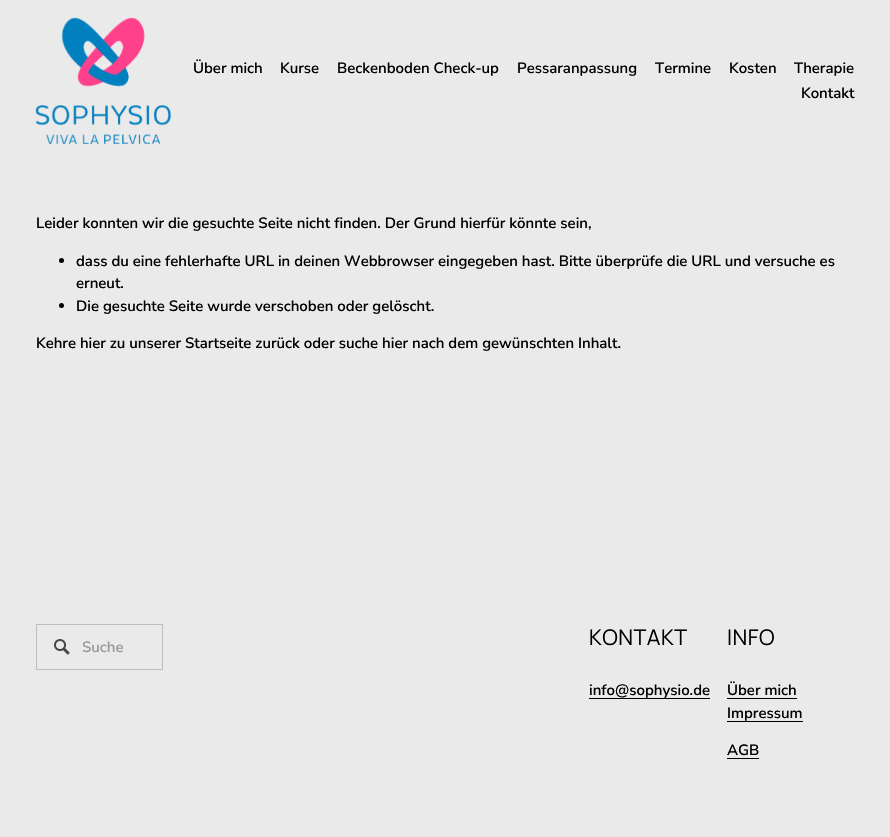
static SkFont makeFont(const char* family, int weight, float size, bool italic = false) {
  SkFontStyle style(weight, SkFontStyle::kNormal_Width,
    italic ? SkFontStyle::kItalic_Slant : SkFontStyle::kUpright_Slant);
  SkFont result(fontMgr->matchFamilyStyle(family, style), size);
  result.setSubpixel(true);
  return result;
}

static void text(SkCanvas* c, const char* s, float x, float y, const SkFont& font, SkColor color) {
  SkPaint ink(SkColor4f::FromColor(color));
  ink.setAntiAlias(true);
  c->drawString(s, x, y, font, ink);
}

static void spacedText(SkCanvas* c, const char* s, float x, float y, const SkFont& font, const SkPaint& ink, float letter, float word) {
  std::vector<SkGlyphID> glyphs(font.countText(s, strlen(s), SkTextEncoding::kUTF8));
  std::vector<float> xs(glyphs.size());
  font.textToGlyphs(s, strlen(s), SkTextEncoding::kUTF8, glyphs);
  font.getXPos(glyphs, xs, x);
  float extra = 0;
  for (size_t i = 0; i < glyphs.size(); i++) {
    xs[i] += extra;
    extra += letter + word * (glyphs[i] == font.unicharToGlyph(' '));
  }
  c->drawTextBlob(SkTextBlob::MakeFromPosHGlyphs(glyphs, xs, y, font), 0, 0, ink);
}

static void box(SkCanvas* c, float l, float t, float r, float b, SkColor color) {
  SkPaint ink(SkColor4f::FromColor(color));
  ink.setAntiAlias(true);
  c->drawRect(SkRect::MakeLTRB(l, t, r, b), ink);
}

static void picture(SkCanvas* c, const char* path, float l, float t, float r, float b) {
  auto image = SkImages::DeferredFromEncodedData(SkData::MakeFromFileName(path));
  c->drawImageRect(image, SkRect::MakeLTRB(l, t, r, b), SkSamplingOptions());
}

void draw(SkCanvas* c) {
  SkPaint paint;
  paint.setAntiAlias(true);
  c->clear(0xffebeaeb);
  picture(c, "img_01.png", 35, 17, 171, 144);
  SkFont face1 = makeFont("Nunito Sans", 600, 15);
  text(c, "Über mich", 193, 73, face1, 0xff000000);
  text(c, "Kurse", 280, 73, face1, 0xff000000);
  text(c, "Beckenboden Check-up", 337, 73, face1, 0xff000000);
  text(c, "Pessaranpassung", 517, 73, face1, 0xff000000);
  text(c, "Termine", 655, 73, face1, 0xff000000);
  text(c, "Kosten", 729, 73, face1, 0xff000000);
  text(c, "Therapie", 794, 73, face1, 0xff000000);
  text(c, "Kontakt", 801, 98, face1, 0xff000000);
  text(c, "Leider konnten wir die gesuchte Seite nicht finden. Der Grund hierfür könnte sein,", 36, 228, face1, 0xff000000);
  paint.setColor(0xff000000);
  c->drawCircle(61.5f, 260.5f, 2.5f, paint);
  text(c, "dass du eine fehlerhafte URL in deinen Webbrowser eingegeben hast. Bitte überprüfe die URL und versuche es", 76, 266, face1, 0xff000000);
  text(c, "erneut.", 76, 288, face1, 0xff000000);
  c->drawCircle(61.5f, 305.5f, 2.5f, paint);
  text(c, "Die gesuchte Seite wurde verschoben oder gelöscht.", 76, 311, face1, 0xff000000);
  text(c, "Kehre hier zu unserer Startseite zurück oder suche hier nach dem gewünschten Inhalt.", 36, 348, face1, 0xff000000);
  picture(c, "img_02.png", 54, 639, 70, 655);
  paint.setStyle(SkPaint::kStroke_Style);
  paint.setStrokeWidth(1);
  paint.setColor(0xffbebdbe);
  c->drawRect(SkRect::MakeLTRB(36.5f, 624.5f, 162.5f, 669.5f), paint);
  text(c, "Suche", 82, 652, face1, 0xff989898);
  SkFont face2 = makeFont("Manrope", 400, 21.5f);
  paint.setStyle(SkPaint::kFill_Style);
  paint.setColor(0xff000000);
  spacedText(c, "KONTAKT", 589, 645, face2, paint, 0.5f, 0);
  text(c, "info@sophysio.de", 589, 695, face1, 0xff000000);
  box(c, 589, 698, 710, 699, 0xff000000);
  spacedText(c, "INFO", 727, 645, face2, paint, 0.5f, 0);
  text(c, "Über mich", 727, 695, face1, 0xff000000);
  box(c, 727, 698, 797, 699, 0xff000000);
  text(c, "Impressum", 727, 718, face1, 0xff000000);
  box(c, 727, 721, 803, 722, 0xff000000);
  text(c, "AGB", 727, 755, face1, 0xff000000);
  box(c, 727, 758, 759, 759, 0xff000000);
}
